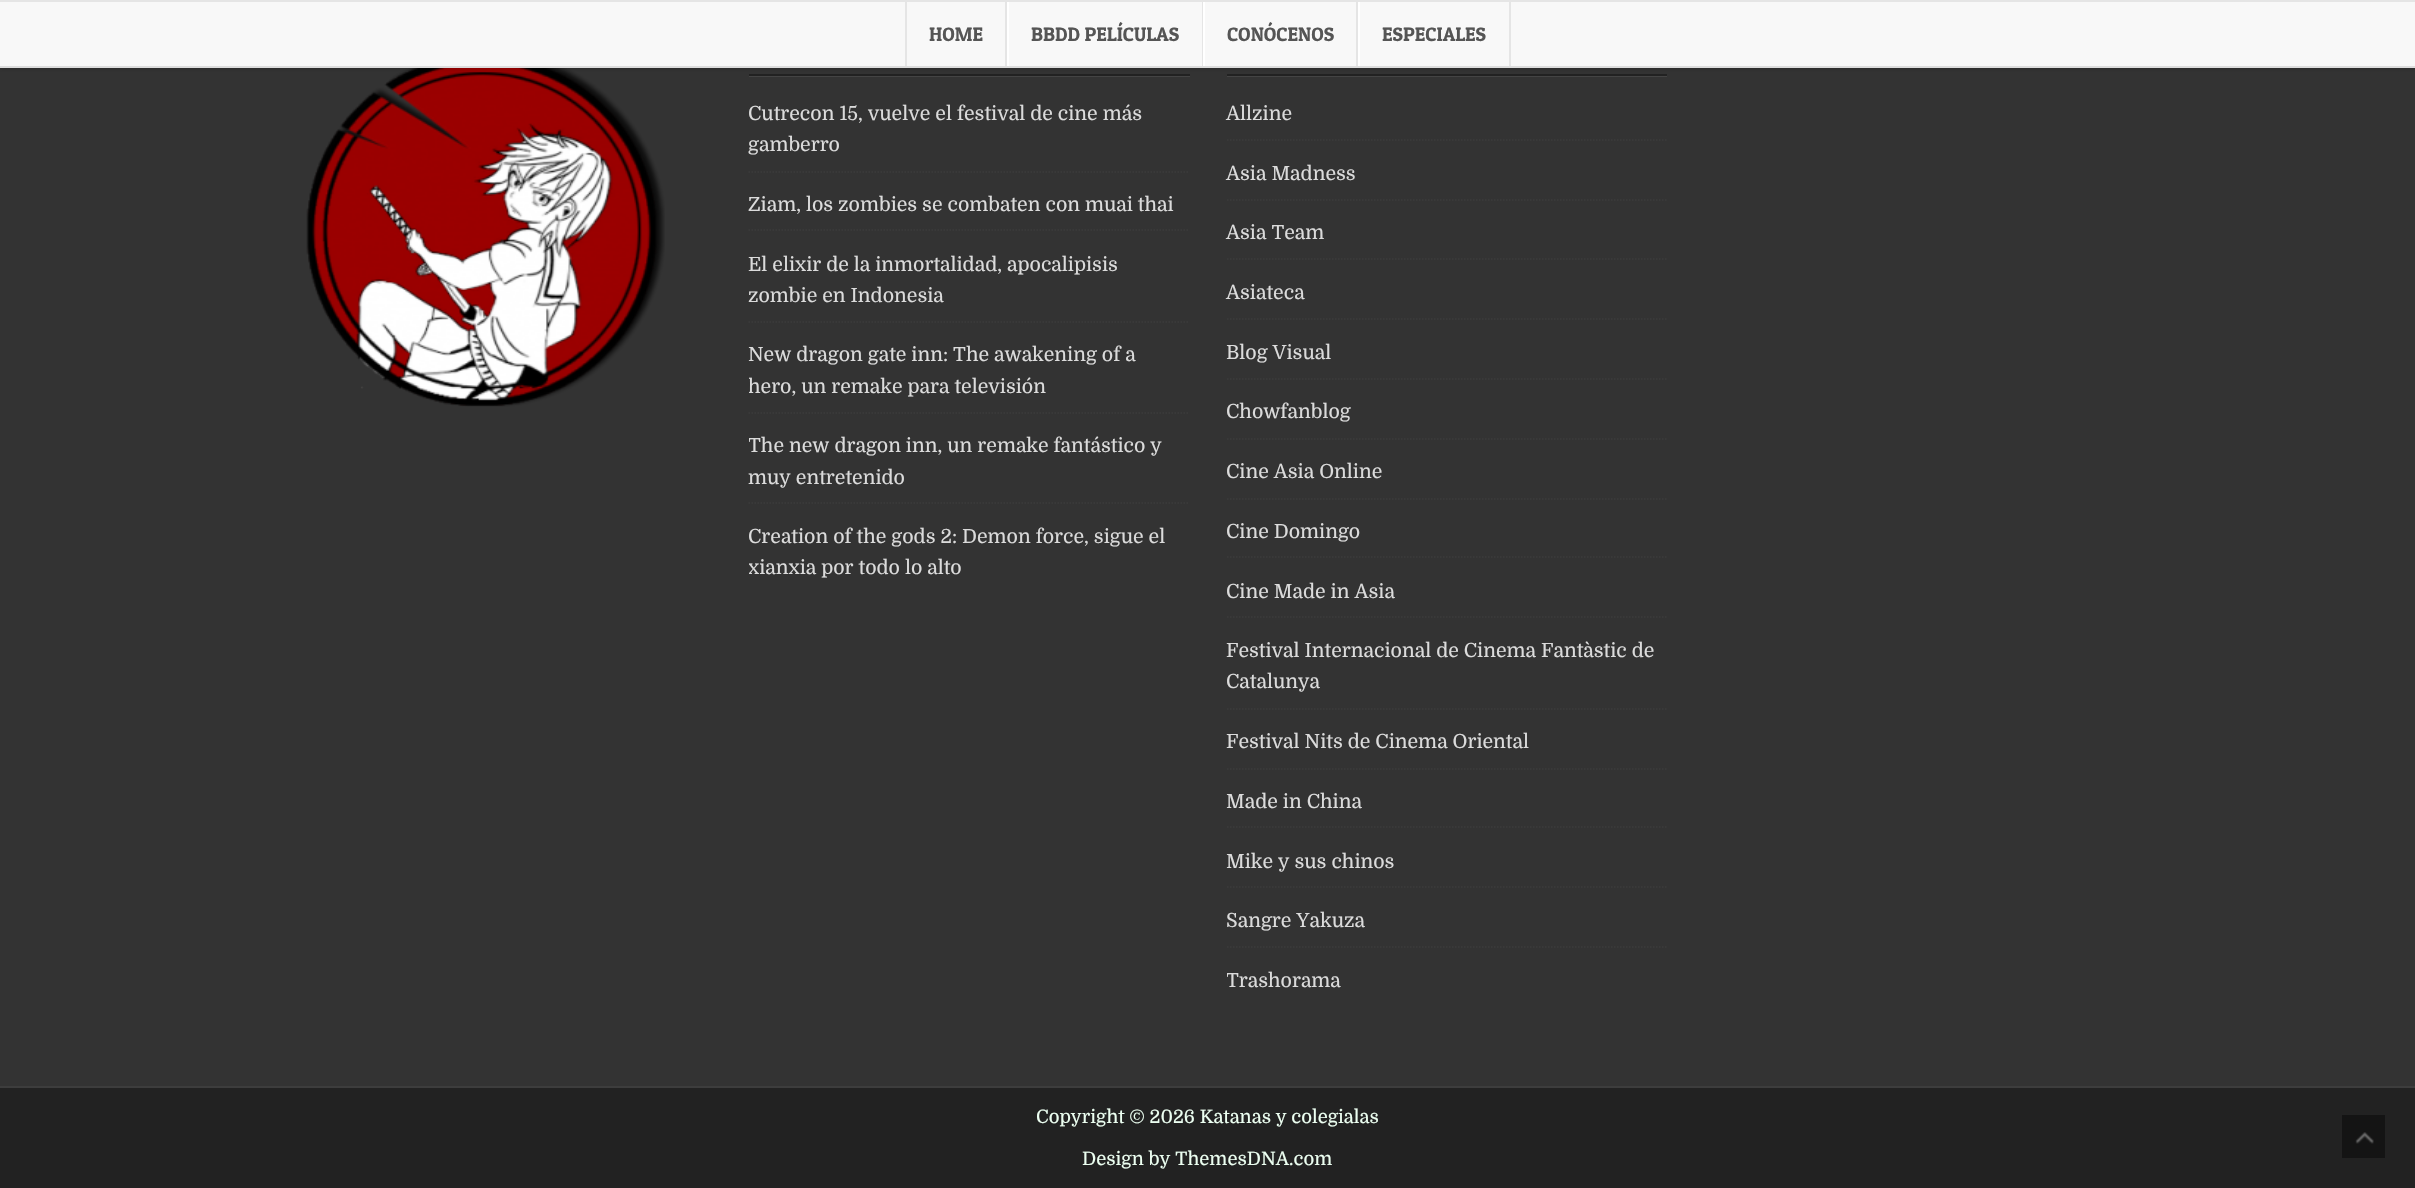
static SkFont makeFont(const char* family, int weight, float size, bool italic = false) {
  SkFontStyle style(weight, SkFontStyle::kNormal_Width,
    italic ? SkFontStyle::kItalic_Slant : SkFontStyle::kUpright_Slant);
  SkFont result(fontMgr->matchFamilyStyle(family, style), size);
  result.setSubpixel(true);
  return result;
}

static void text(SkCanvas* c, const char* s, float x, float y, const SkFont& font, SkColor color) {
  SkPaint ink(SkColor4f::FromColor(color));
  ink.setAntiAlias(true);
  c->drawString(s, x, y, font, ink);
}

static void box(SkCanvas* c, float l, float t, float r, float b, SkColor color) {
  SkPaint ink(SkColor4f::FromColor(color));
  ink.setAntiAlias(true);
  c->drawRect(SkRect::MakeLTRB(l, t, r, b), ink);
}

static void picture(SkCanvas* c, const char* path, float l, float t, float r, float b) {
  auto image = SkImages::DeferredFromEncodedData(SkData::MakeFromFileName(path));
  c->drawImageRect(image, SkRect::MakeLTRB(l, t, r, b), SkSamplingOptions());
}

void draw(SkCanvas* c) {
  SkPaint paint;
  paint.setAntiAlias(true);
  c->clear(0xff333333);
  picture(c, "img_01.png", 306, 68, 665, 407);
  box(c, 749, 74, 1190, 76, 0xff222222);
  box(c, 1227, 74, 1667, 76, 0xff222222);
  paint.setColor(0x26000000);
  paint.setMaskFilter(SkMaskFilter::MakeBlur(kNormal_SkBlurStyle, 2));
  c->drawRect(SkRect::MakeLTRB(0, 2, 2415, 69), paint);
  paint.setMaskFilter(nullptr);
  box(c, 0, 2, 2415, 66, 0xfff8f8f8);
  box(c, 0, 0, 2415, 2, 0xffe5e5e5);
  box(c, 0, 66, 2415, 68, 0xffdddddd);
  box(c, 1005, 2, 1007, 66, 0xffe5e5e5);
  box(c, 905, 2, 907, 66, 0xffe5e5e5);
  SkFont face1 = makeFont("Patua One", 400, 19.5f);
  text(c, "HOME", 929, 41, face1, 0xff555555);
  box(c, 1202, 2, 1203, 66, 0xffe5e5e5);
  box(c, 1007, 2, 1009, 66, 0xffffffff);
  text(c, "BBDD PELÍCULAS", 1031, 41, face1, 0xff555555);
  box(c, 1356, 2, 1358, 66, 0xffe5e5e5);
  box(c, 1203, 2, 1205, 66, 0xffffffff);
  text(c, "CONÓCENOS", 1227, 41, face1, 0xff555555);
  box(c, 1509, 2, 1511, 66, 0xffe5e5e5);
  box(c, 1358, 2, 1360, 66, 0xffffffff);
  text(c, "ESPECIALES", 1382, 41, face1, 0xff555555);
  box(c, 749, 76, 1190, 77, 0xff444444);
  paint.setStyle(SkPaint::kStroke_Style);
  paint.setStrokeWidth(1.5f);
  paint.setColor(0xff3a3a3a);
  paint.setPathEffect(SkDashPathEffect::Make({{1.5f, 1.5f}}, 0));
  c->drawPath(SkPathBuilder().moveTo(748.5f, 172).lineTo(1189.5f, 172).detach(), paint);
  paint.setPathEffect(nullptr);
  SkFont face2 = makeFont("Domine", 400, 19.5f);
  text(c, "Cutrecon 15, vuelve el festival de cine más", 748, 120, face2, 0xffdbdbdb);
  text(c, "gamberro", 748, 151, face2, 0xffdbdbdb);
  paint.setPathEffect(SkDashPathEffect::Make({{1.5f, 1.5f}}, 0));
  c->drawPath(SkPathBuilder().moveTo(748.5f, 230).lineTo(1189.5f, 230).detach(), paint);
  paint.setPathEffect(nullptr);
  text(c, "Ziam, los zombies se combaten con muai thai", 748, 211, face2, 0xffdbdbdb);
  paint.setPathEffect(SkDashPathEffect::Make({{1.5f, 1.5f}}, 0));
  c->drawPath(SkPathBuilder().moveTo(748.5f, 322).lineTo(1189.5f, 322).detach(), paint);
  paint.setPathEffect(nullptr);
  text(c, "El elixir de la inmortalidad, apocalipisis", 748, 271, face2, 0xffdbdbdb);
  text(c, "zombie en Indonesia", 748, 302, face2, 0xffdbdbdb);
  paint.setPathEffect(SkDashPathEffect::Make({{1.5f, 1.5f}}, 0));
  c->drawPath(SkPathBuilder().moveTo(748.5f, 413).lineTo(1189.5f, 413).detach(), paint);
  paint.setPathEffect(nullptr);
  text(c, "New dragon gate inn: The awakening of a", 748, 361, face2, 0xffdbdbdb);
  c->save();
  c->clipRect(SkRect::MakeLTRB(749, 38, 1190, 594));
  text(c, "hero, un remake para televisión", 748, 393, face2, 0xffdbdbdb);
  c->restore();
  paint.setPathEffect(SkDashPathEffect::Make({{1.5f, 1.5f}}, 0));
  c->drawPath(SkPathBuilder().moveTo(748.5f, 503).lineTo(1189.5f, 503).detach(), paint);
  paint.setPathEffect(nullptr);
  c->save();
  c->clipRect(SkRect::MakeLTRB(749, 38, 1190, 594));
  text(c, "The new dragon inn, un remake fantástico y", 748, 452, face2, 0xffdbdbdb);
  c->restore();
  text(c, "muy entretenido", 748, 484, face2, 0xffdbdbdb);
  text(c, "Creation of the gods 2: Demon force, sigue el", 748, 543, face2, 0xffdbdbdb);
  c->save();
  c->clipRect(SkRect::MakeLTRB(749, 38, 1190, 594));
  text(c, "xianxia por todo lo alto", 748, 574, face2, 0xffdbdbdb);
  c->restore();
  box(c, 1227, 76, 1667, 77, 0xff444444);
  paint.setPathEffect(SkDashPathEffect::Make({{1.5f, 1.5f}}, 0));
  c->drawPath(SkPathBuilder().moveTo(1227, 140).lineTo(1666.5f, 140).detach(), paint);
  paint.setPathEffect(nullptr);
  text(c, "Allzine", 1226, 120, face2, 0xffdbdbdb);
  paint.setPathEffect(SkDashPathEffect::Make({{1.5f, 1.5f}}, 0));
  c->drawPath(SkPathBuilder().moveTo(1227, 200).lineTo(1666.5f, 200).detach(), paint);
  paint.setPathEffect(nullptr);
  text(c, "Asia Madness", 1226, 180, face2, 0xffdbdbdb);
  paint.setPathEffect(SkDashPathEffect::Make({{1.5f, 1.5f}}, 0));
  c->drawPath(SkPathBuilder().moveTo(1227, 259).lineTo(1666.5f, 259).detach(), paint);
  paint.setPathEffect(nullptr);
  text(c, "Asia Team", 1226, 239, face2, 0xffdbdbdb);
  paint.setPathEffect(SkDashPathEffect::Make({{1.5f, 1.5f}}, 0));
  c->drawPath(SkPathBuilder().moveTo(1227, 319).lineTo(1666.5f, 319).detach(), paint);
  paint.setPathEffect(nullptr);
  text(c, "Asiateca", 1226, 299, face2, 0xffdbdbdb);
  paint.setPathEffect(SkDashPathEffect::Make({{1.5f, 1.5f}}, 0));
  c->drawPath(SkPathBuilder().moveTo(1227, 379).lineTo(1666.5f, 379).detach(), paint);
  paint.setPathEffect(nullptr);
  text(c, "Blog Visual", 1226, 359, face2, 0xffdbdbdb);
  paint.setPathEffect(SkDashPathEffect::Make({{1.5f, 1.5f}}, 0));
  c->drawPath(SkPathBuilder().moveTo(1227, 439).lineTo(1666.5f, 439).detach(), paint);
  paint.setPathEffect(nullptr);
  text(c, "Chowfanblog", 1226, 418, face2, 0xffdbdbdb);
  paint.setPathEffect(SkDashPathEffect::Make({{1.5f, 1.5f}}, 0));
  c->drawPath(SkPathBuilder().moveTo(1227, 499).lineTo(1666.5f, 499).detach(), paint);
  paint.setPathEffect(nullptr);
  text(c, "Cine Asia Online", 1226, 478, face2, 0xffdbdbdb);
  paint.setPathEffect(SkDashPathEffect::Make({{1.5f, 1.5f}}, 0));
  c->drawPath(SkPathBuilder().moveTo(1227, 557).lineTo(1666.5f, 557).detach(), paint);
  paint.setPathEffect(nullptr);
  text(c, "Cine Domingo", 1226, 538, face2, 0xffdbdbdb);
  paint.setPathEffect(SkDashPathEffect::Make({{1.5f, 1.5f}}, 0));
  c->drawPath(SkPathBuilder().moveTo(1227, 617).lineTo(1666.5f, 617).detach(), paint);
  paint.setPathEffect(nullptr);
  text(c, "Cine Made in Asia", 1226, 598, face2, 0xffdbdbdb);
  paint.setPathEffect(SkDashPathEffect::Make({{1.5f, 1.5f}}, 0));
  c->drawPath(SkPathBuilder().moveTo(1227, 709).lineTo(1666.5f, 709).detach(), paint);
  paint.setPathEffect(nullptr);
  text(c, "Festival Internacional de Cinema Fantàstic de", 1226, 657, face2, 0xffdbdbdb);
  text(c, "Catalunya", 1226, 688, face2, 0xffdbdbdb);
  paint.setPathEffect(SkDashPathEffect::Make({{1.5f, 1.5f}}, 0));
  c->drawPath(SkPathBuilder().moveTo(1227, 769).lineTo(1666.5f, 769).detach(), paint);
  paint.setPathEffect(nullptr);
  text(c, "Festival Nits de Cinema Oriental", 1226, 748, face2, 0xffdbdbdb);
  paint.setPathEffect(SkDashPathEffect::Make({{1.5f, 1.5f}}, 0));
  c->drawPath(SkPathBuilder().moveTo(1227, 827).lineTo(1666.5f, 827).detach(), paint);
  paint.setPathEffect(nullptr);
  text(c, "Made in China", 1226, 808, face2, 0xffdbdbdb);
  paint.setPathEffect(SkDashPathEffect::Make({{1.5f, 1.5f}}, 0));
  c->drawPath(SkPathBuilder().moveTo(1227, 887).lineTo(1666.5f, 887).detach(), paint);
  paint.setPathEffect(nullptr);
  text(c, "Mike y sus chinos", 1226, 868, face2, 0xffdbdbdb);
  paint.setPathEffect(SkDashPathEffect::Make({{1.5f, 1.5f}}, 0));
  c->drawPath(SkPathBuilder().moveTo(1227, 947).lineTo(1666.5f, 947).detach(), paint);
  paint.setPathEffect(nullptr);
  text(c, "Sangre Yakuza", 1226, 927, face2, 0xffdbdbdb);
  c->save();
  c->clipRect(SkRect::MakeLTRB(1227, 38, 1667, 1007));
  text(c, "Trashorama", 1226, 987, face2, 0xffdbdbdb);
  c->restore();
  box(c, 0, 1088, 2415, 1188, 0xff222222);
  box(c, 0, 1086, 2415, 1088, 0xff3d3d3d);
  SkFont face3 = makeFont("Domine", 400, 18.5f);
  text(c, "Copyright © 2026 Katanas y colegialas", 1036, 1123, face3, 0xffecfff1);
  text(c, "Design by ThemesDNA.com", 1082, 1165, face3, 0xffecfff1);
  box(c, 2342, 1115, 2385, 1158, 0xff141414);
  picture(c, "img_02.png", 2355, 1132, 2374, 1144);
}
